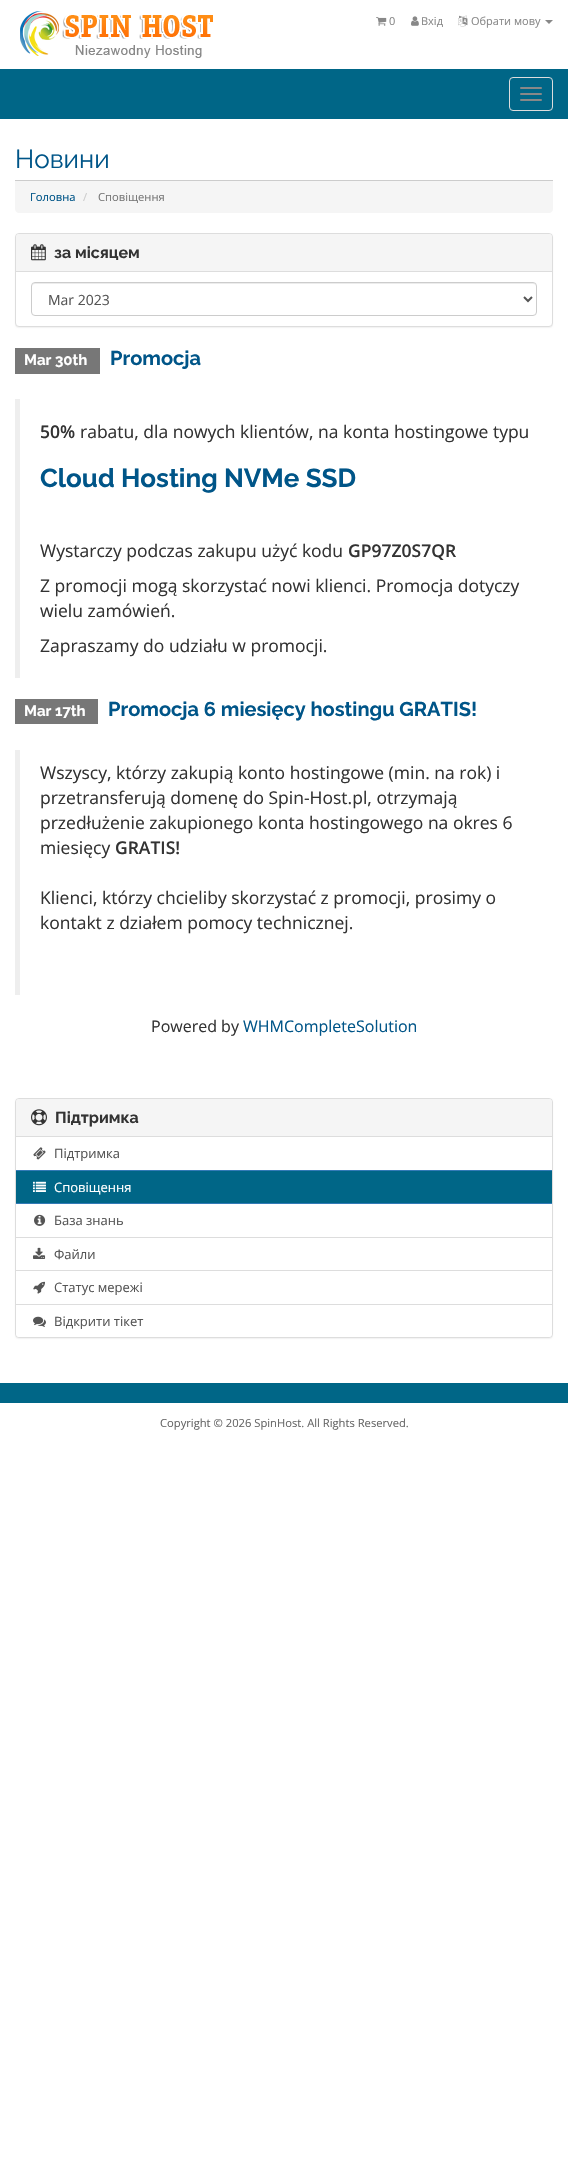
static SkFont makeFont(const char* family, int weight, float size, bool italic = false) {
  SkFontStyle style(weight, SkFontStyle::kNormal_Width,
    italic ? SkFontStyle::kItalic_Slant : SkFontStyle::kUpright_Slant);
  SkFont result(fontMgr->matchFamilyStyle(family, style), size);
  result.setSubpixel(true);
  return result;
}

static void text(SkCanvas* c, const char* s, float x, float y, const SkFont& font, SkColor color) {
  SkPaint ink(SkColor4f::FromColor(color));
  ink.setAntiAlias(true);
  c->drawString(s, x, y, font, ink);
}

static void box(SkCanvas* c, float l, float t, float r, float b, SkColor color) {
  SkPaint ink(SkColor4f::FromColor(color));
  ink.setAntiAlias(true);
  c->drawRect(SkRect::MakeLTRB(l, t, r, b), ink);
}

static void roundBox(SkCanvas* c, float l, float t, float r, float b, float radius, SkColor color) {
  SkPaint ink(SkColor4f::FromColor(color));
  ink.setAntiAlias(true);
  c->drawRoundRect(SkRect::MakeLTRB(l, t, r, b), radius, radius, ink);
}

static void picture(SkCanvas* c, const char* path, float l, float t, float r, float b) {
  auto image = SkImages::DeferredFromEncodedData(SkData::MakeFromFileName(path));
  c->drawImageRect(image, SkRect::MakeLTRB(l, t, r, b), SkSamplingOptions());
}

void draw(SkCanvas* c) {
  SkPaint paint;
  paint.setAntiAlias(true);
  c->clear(0xffffffff);
  picture(c, "img_01.png", 20, 11, 213, 58);
  picture(c, "img_02.png", 376, 17, 387, 26);
  SkFont face1 = makeFont("Open Sans", 400, 11);
  text(c, "0", 389, 25, face1, 0xff888888);
  picture(c, "img_03.png", 411, 16, 419, 26);
  text(c, "Вхід", 421, 25, face1, 0xff888888);
  picture(c, "img_04.png", 458, 15, 468, 27);
  text(c, "Обрати мову", 471, 25, face1, 0xff888888);
  paint.setColor(0xff888888);
  c->drawPath(SkPathBuilder().moveTo(545, 20).lineTo(553, 20).lineTo(549, 24).close().detach(), paint);
  box(c, 0, 69, 568, 119, 0xff006687);
  paint.setStyle(SkPaint::kStroke_Style);
  paint.setStrokeWidth(1);
  paint.setColor(0xffdddddd);
  c->drawRoundRect(SkRect::MakeLTRB(509.5f, 77.5f, 552.5f, 110.5f), 3.5f, 3.5f, paint);
  roundBox(c, 520, 87, 542, 89, 1, 0xff888888);
  roundBox(c, 520, 93, 542, 95, 1, 0xff888888);
  roundBox(c, 520, 99, 542, 101, 1, 0xff888888);
  box(c, 15, 180, 553, 181, 0xffcccccc);
  SkFont face2 = makeFont("Raleway", 400, 26);
  text(c, "Новини", 15, 168, face2, 0xff005588);
  paint.setStyle(SkPaint::kFill_Style);
  paint.setColor(0xfff5f5f5);
  c->drawPath(SkPathBuilder().moveTo(15, 181).lineTo(553, 181).lineTo(553, 209).cubicTo(553, 211, 551, 213, 549, 213).lineTo(19, 213).cubicTo(17, 213, 15, 211, 15, 209).close().detach(), paint);
  SkFont face3 = makeFont("Open Sans", 400, 11.2f);
  text(c, "Головна", 30, 201, face3, 0xff005588);
  text(c, "/", 83, 201, face3, 0xffcccccc);
  text(c, "Сповіщення", 98, 201, face3, 0xff777777);
  paint.setColor(0x0d000000);
  paint.setMaskFilter(SkMaskFilter::MakeBlur(kNormal_SkBlurStyle, 0.5f));
  c->drawRoundRect(SkRect::MakeLTRB(15, 234, 553, 328), 4, 4, paint);
  paint.setMaskFilter(nullptr);
  paint.setColor(0xffffffff);
  c->drawRoundRect(SkRect::MakeLTRB(15.5f, 233.5f, 552.5f, 326.5f), 3.5f, 3.5f, paint);
  paint.setStyle(SkPaint::kStroke_Style);
  paint.setColor(0xffdddddd);
  c->drawRoundRect(SkRect::MakeLTRB(15.5f, 233.5f, 552.5f, 326.5f), 3.5f, 3.5f, paint);
  paint.setStyle(SkPaint::kFill_Style);
  paint.setColor(0xfff5f5f5);
  c->drawPath(SkPathBuilder().moveTo(19, 234).lineTo(549, 234).cubicTo(550.5f, 234, 552, 235.5f, 552, 237).lineTo(552, 272).lineTo(16, 272).lineTo(16, 237).cubicTo(16, 235.5f, 17.5f, 234, 19, 234).close().detach(), paint);
  box(c, 16, 271, 552, 272, 0xffdddddd);
  picture(c, "img_05.png", 31, 244, 46, 261);
  SkFont face4 = makeFont("Raleway", 700, 16);
  text(c, "за місяцем", 54, 258, face4, 0xff333333);
  paint.setColor(0xffececec);
  c->drawPath(SkPathBuilder().moveTo(35, 284).lineTo(533, 284).cubicTo(535, 284, 536, 285, 536, 287).cubicTo(536, 285, 535, 283, 533, 283).lineTo(35, 283).cubicTo(33, 283, 32, 285, 32, 287).cubicTo(32, 285, 33, 284, 35, 284).close().detach(), paint);
  paint.setStyle(SkPaint::kStroke_Style);
  paint.setColor(0xffcccccc);
  c->drawRoundRect(SkRect::MakeLTRB(31.5f, 282.5f, 536.5f, 315.5f), 3.5f, 3.5f, paint);
  paint.setStrokeWidth(2);
  paint.setColor(0xff555555);
  c->drawPath(SkPathBuilder().moveTo(524, 297).lineTo(528, 301).lineTo(532, 297).detach(), paint);
  SkFont face5 = makeFont("Open Sans", 400, 14);
  text(c, "Mar 2023", 48, 305, face5, 0xff555555);
  box(c, 15, 348, 100, 374, 0xff777777);
  SkFont face6 = makeFont("Raleway", 700, 15);
  text(c, "Mar 30th", 24, 365, face6, 0xffffffff);
  SkFont face7 = makeFont("Raleway", 700, 20);
  text(c, "Promocja", 110, 365, face7, 0xff005588);
  box(c, 15, 399, 20, 678, 0xffeeeeee);
  SkFont face8 = makeFont("Open Sans", 600, 17.5f);
  text(c, "50%", 40, 438, face8, 0xff333333);
  SkFont face9 = makeFont("Open Sans", 400, 17.5f);
  text(c, "rabatu, dla nowych klientów, na konta hostingowe typu", 80, 438, face9, 0xff333333);
  SkFont face10 = makeFont("Raleway", 700, 26);
  text(c, "Cloud Hosting NVMe SSD", 40, 487, face10, 0xff005588);
  text(c, "Wystarczy podczas zakupu użyć kodu", 40, 557, face9, 0xff333333);
  text(c, "GP97Z0S7QR", 348, 557, face8, 0xff333333);
  text(c, "Z promocji mogą skorzystać nowi klienci. Promocja dotyczy", 40, 592, face9, 0xff333333);
  text(c, "wielu zamówień.", 40, 617, face9, 0xff333333);
  text(c, "Zapraszamy do udziału w promocji.", 40, 652, face9, 0xff333333);
  box(c, 15, 699, 98, 724, 0xff777777);
  text(c, "Mar 17th", 24, 716, face6, 0xffffffff);
  text(c, "Promocja 6 miesięcy hostingu GRATIS!", 108, 716, face7, 0xff005588);
  box(c, 15, 750, 20, 995, 0xffeeeeee);
  text(c, "Wszyscy, którzy zakupią konto hostingowe (min. na rok) i", 40, 779, face9, 0xff333333);
  text(c, "przetransferują domenę do Spin-Host.pl, otrzymają", 40, 804, face9, 0xff333333);
  text(c, "przedłużenie zakupionego konta hostingowego na okres 6", 40, 829, face9, 0xff333333);
  text(c, "miesięcy", 40, 854, face9, 0xff333333);
  text(c, "GRATIS!", 115, 854, face8, 0xff333333);
  text(c, "Klienci, którzy chcieliby skorzystać z promocji, prosimy o", 40, 904, face9, 0xff333333);
  text(c, "kontakt z działem pomocy technicznej.", 40, 929, face9, 0xff333333);
  SkFont face11 = makeFont("Open Sans", 400, 16);
  text(c, "Powered by", 151, 1032, face11, 0xff333333);
  text(c, "WHMCompleteSolution", 243, 1032, face11, 0xff005588);
  paint.setStyle(SkPaint::kFill_Style);
  paint.setColor(0x0d000000);
  paint.setMaskFilter(SkMaskFilter::MakeBlur(kNormal_SkBlurStyle, 0.5f));
  c->drawRoundRect(SkRect::MakeLTRB(15, 1099, 553, 1339), 4, 4, paint);
  paint.setMaskFilter(nullptr);
  paint.setColor(0xffffffff);
  c->drawRoundRect(SkRect::MakeLTRB(15.5f, 1098.5f, 552.5f, 1337.5f), 3.5f, 3.5f, paint);
  paint.setStyle(SkPaint::kStroke_Style);
  paint.setStrokeWidth(1);
  paint.setColor(0xffdddddd);
  c->drawRoundRect(SkRect::MakeLTRB(15.5f, 1098.5f, 552.5f, 1337.5f), 3.5f, 3.5f, paint);
  paint.setStyle(SkPaint::kFill_Style);
  paint.setColor(0xfff5f5f5);
  c->drawPath(SkPathBuilder().moveTo(19, 1099).lineTo(549, 1099).cubicTo(550.5f, 1099, 552, 1100.5f, 552, 1102).lineTo(552, 1137).lineTo(16, 1137).lineTo(16, 1102).cubicTo(16, 1100.5f, 17.5f, 1099, 19, 1099).close().detach(), paint);
  box(c, 16, 1136, 552, 1137, 0xffdddddd);
  picture(c, "img_06.png", 31, 1109, 47, 1126);
  text(c, "Підтримка", 55, 1123, face4, 0xff333333);
  picture(c, "img_07.png", 33, 1147, 46, 1160);
  SkFont face12 = makeFont("Open Sans", 400, 13);
  text(c, "Підтримка", 54, 1158, face12, 0xff555555);
  box(c, 16, 1171, 552, 1203, 0xff006687);
  box(c, 16, 1170, 552, 1171, 0xff337ab7);
  box(c, 16, 1203, 552, 1204, 0xff337ab7);
  picture(c, "img_08.png", 33, 1181, 46, 1192);
  text(c, "Сповіщення", 54, 1192, face12, 0xffffffff);
  box(c, 16, 1237, 552, 1238, 0xffdddddd);
  picture(c, "img_09.png", 34, 1214, 46, 1226);
  text(c, "База знань", 54, 1225, face12, 0xff555555);
  box(c, 16, 1270, 552, 1271, 0xffdddddd);
  picture(c, "img_10.png", 33, 1247, 46, 1259);
  text(c, "Файли", 54, 1259, face12, 0xff555555);
  picture(c, "img_11.png", 33, 1281, 45, 1294);
  text(c, "Статус мережі", 54, 1292, face12, 0xff555555);
  paint.setColor(0xffffffff);
  c->drawPath(SkPathBuilder().moveTo(16, 1304).lineTo(552, 1304).lineTo(552, 1334).cubicTo(552, 1335.5f, 550.5f, 1337, 549, 1337).lineTo(19, 1337).cubicTo(17.5f, 1337, 16, 1335.5f, 16, 1334).close().detach(), paint);
  box(c, 16, 1304, 552, 1305, 0xffdddddd);
  picture(c, "img_12.png", 33, 1316, 46, 1327);
  text(c, "Відкрити тікет", 54, 1326, face12, 0xff555555);
  box(c, 0, 1383, 568, 1403, 0xff006687);
  text(c, "Copyright © 2026 SpinHost. All Rights Reserved.", 160, 1427, face3, 0xff666666);
}
